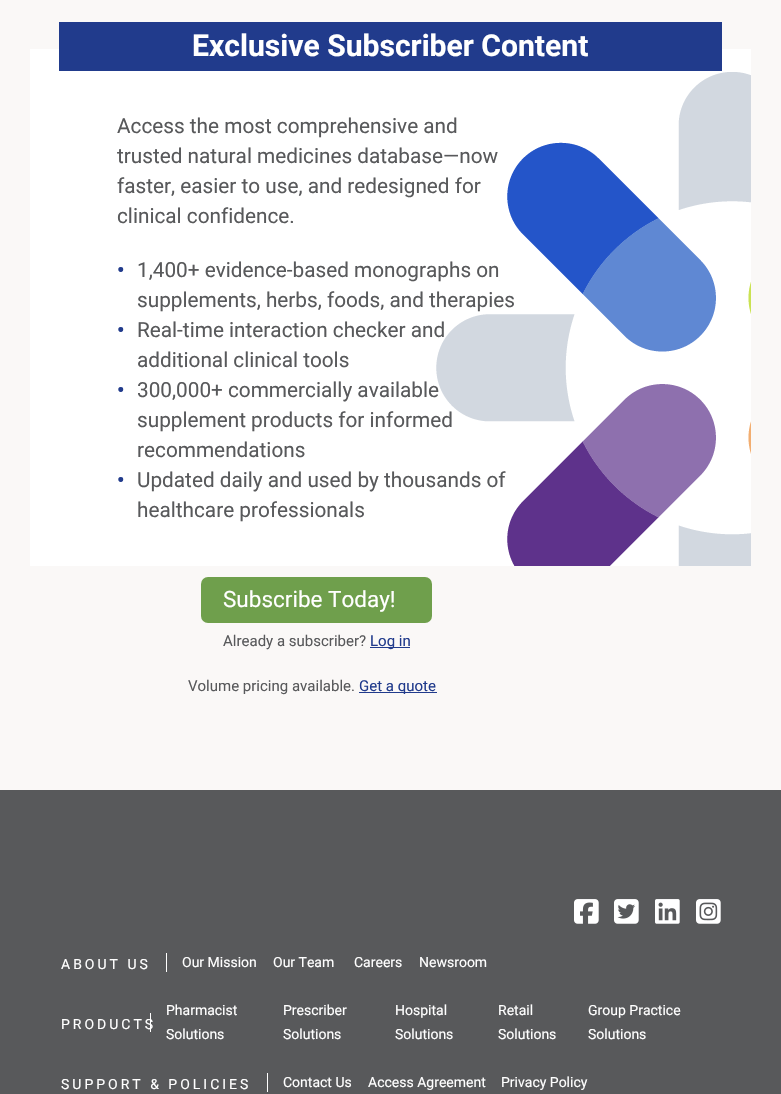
static SkFont makeFont(const char* family, int weight, float size, bool italic = false) {
  SkFontStyle style(weight, SkFontStyle::kNormal_Width,
    italic ? SkFontStyle::kItalic_Slant : SkFontStyle::kUpright_Slant);
  SkFont result(fontMgr->matchFamilyStyle(family, style), size);
  result.setSubpixel(true);
  return result;
}

static void text(SkCanvas* c, const char* s, float x, float y, const SkFont& font, SkColor color) {
  SkPaint ink(SkColor4f::FromColor(color));
  ink.setAntiAlias(true);
  c->drawString(s, x, y, font, ink);
}

static void spacedText(SkCanvas* c, const char* s, float x, float y, const SkFont& font, const SkPaint& ink, float letter, float word) {
  std::vector<SkGlyphID> glyphs(font.countText(s, strlen(s), SkTextEncoding::kUTF8));
  std::vector<float> xs(glyphs.size());
  font.textToGlyphs(s, strlen(s), SkTextEncoding::kUTF8, glyphs);
  font.getXPos(glyphs, xs, x);
  float extra = 0;
  for (size_t i = 0; i < glyphs.size(); i++) {
    xs[i] += extra;
    extra += letter + word * (glyphs[i] == font.unicharToGlyph(' '));
  }
  c->drawTextBlob(SkTextBlob::MakeFromPosHGlyphs(glyphs, xs, y, font), 0, 0, ink);
}

static void box(SkCanvas* c, float l, float t, float r, float b, SkColor color) {
  SkPaint ink(SkColor4f::FromColor(color));
  ink.setAntiAlias(true);
  c->drawRect(SkRect::MakeLTRB(l, t, r, b), ink);
}

static void roundBox(SkCanvas* c, float l, float t, float r, float b, float radius, SkColor color) {
  SkPaint ink(SkColor4f::FromColor(color));
  ink.setAntiAlias(true);
  c->drawRoundRect(SkRect::MakeLTRB(l, t, r, b), radius, radius, ink);
}

static void picture(SkCanvas* c, const char* path, float l, float t, float r, float b) {
  auto image = SkImages::DeferredFromEncodedData(SkData::MakeFromFileName(path));
  c->drawImageRect(image, SkRect::MakeLTRB(l, t, r, b), SkSamplingOptions());
}

void draw(SkCanvas* c) {
  SkPaint paint;
  paint.setAntiAlias(true);
  c->clear(0xfffaf8f7);
  picture(c, "img_01.png", 30, 49, 751, 566);
  box(c, 59, 22, 722, 71, 0xff213b8c);
  SkFont face1 = makeFont("Roboto", 700, 30.1f);
  text(c, "Exclusive Subscriber Content", 192, 56, face1, 0xffffffff);
  SkFont face2 = makeFont("Roboto", 400, 20.75f);
  text(c, "Access the most comprehensive and", 117, 133, face2, 0xff58595b);
  text(c, "trusted natural medicines database—now", 117, 163, face2, 0xff58595b);
  text(c, "faster, easier to use, and redesigned for", 117, 193, face2, 0xff58595b);
  text(c, "clinical confidence.", 117, 223, face2, 0xff58595b);
  SkFont face3 = makeFont("Roboto", 700, 20.75f);
  text(c, "•", 117, 277, face3, 0xff213b8c);
  text(c, "1,400+ evidence-based monographs on", 137, 277, face2, 0xff58595b);
  text(c, "supplements, herbs, foods, and therapies", 137, 307, face2, 0xff58595b);
  text(c, "•", 117, 337, face3, 0xff213b8c);
  text(c, "Real-time interaction checker and", 137, 337, face2, 0xff58595b);
  text(c, "additional clinical tools", 137, 367, face2, 0xff58595b);
  text(c, "•", 117, 397, face3, 0xff213b8c);
  text(c, "300,000+ commercially available", 137, 397, face2, 0xff58595b);
  text(c, "supplement products for informed", 137, 427, face2, 0xff58595b);
  text(c, "recommendations", 137, 457, face2, 0xff58595b);
  text(c, "•", 117, 487, face3, 0xff213b8c);
  text(c, "Updated daily and used by thousands of", 137, 487, face2, 0xff58595b);
  text(c, "healthcare professionals", 137, 517, face2, 0xff58595b);
  roundBox(c, 201, 577, 432, 623, 7, 0xff6f9f4c);
  SkFont face4 = makeFont("Roboto", 400, 22.5f);
  text(c, "Subscribe Today!", 223, 607, face4, 0xffffffff);
  SkFont face5 = makeFont("Roboto", 400, 15);
  text(c, "Already a subscriber?", 223, 646, face5, 0xff58595b);
  box(c, 370, 647, 410, 648, 0xff213b8c);
  text(c, "Log in", 370, 646, face5, 0xff213b8c);
  text(c, "Volume pricing available.", 188, 691, face5, 0xff58595b);
  box(c, 359, 692, 437, 693, 0xff213b8c);
  text(c, "Get a quote", 359, 691, face5, 0xff213b8c);
  box(c, 0, 790, 781, 1094, 0xff58595b);
  picture(c, "img_02.png", 574, 899, 599, 924);
  picture(c, "img_03.png", 614, 899, 639, 924);
  picture(c, "img_04.png", 655, 899, 680, 924);
  picture(c, "img_05.png", 696, 899, 721, 924);
  box(c, 166, 953, 167, 972, 0xffffffff);
  SkFont face6 = makeFont("Roboto", 400, 14);
  paint.setColor(0xffffffff);
  spacedText(c, "ABOUT US", 61, 969, face6, paint, 3, 0);
  text(c, "Our Mission", 182, 967, face6, 0xffffffff);
  text(c, "Our Team", 273, 967, face6, 0xffffffff);
  text(c, "Careers", 354, 967, face6, 0xffffffff);
  text(c, "Newsroom", 419, 967, face6, 0xffffffff);
  box(c, 150, 1013, 151, 1032, 0xffffffff);
  spacedText(c, "PRODUCTS", 61, 1029, face6, paint, 3, 0);
  text(c, "Pharmacist", 166, 1015, face6, 0xffffffff);
  text(c, "Solutions", 166, 1039, face6, 0xffffffff);
  text(c, "Prescriber", 283, 1015, face6, 0xffffffff);
  text(c, "Solutions", 283, 1039, face6, 0xffffffff);
  text(c, "Hospital", 395, 1015, face6, 0xffffffff);
  text(c, "Solutions", 395, 1039, face6, 0xffffffff);
  text(c, "Retail", 498, 1015, face6, 0xffffffff);
  text(c, "Solutions", 498, 1039, face6, 0xffffffff);
  text(c, "Group Practice", 588, 1015, face6, 0xffffffff);
  text(c, "Solutions", 588, 1039, face6, 0xffffffff);
  box(c, 267, 1073, 268, 1092, 0xffffffff);
  spacedText(c, "SUPPORT & POLICIES", 61, 1089, face6, paint, 3, 0);
  text(c, "Contact Us", 283, 1087, face6, 0xffffffff);
  text(c, "Access Agreement", 368, 1087, face6, 0xffffffff);
  text(c, "Privacy Policy", 501, 1087, face6, 0xffffffff);
}
